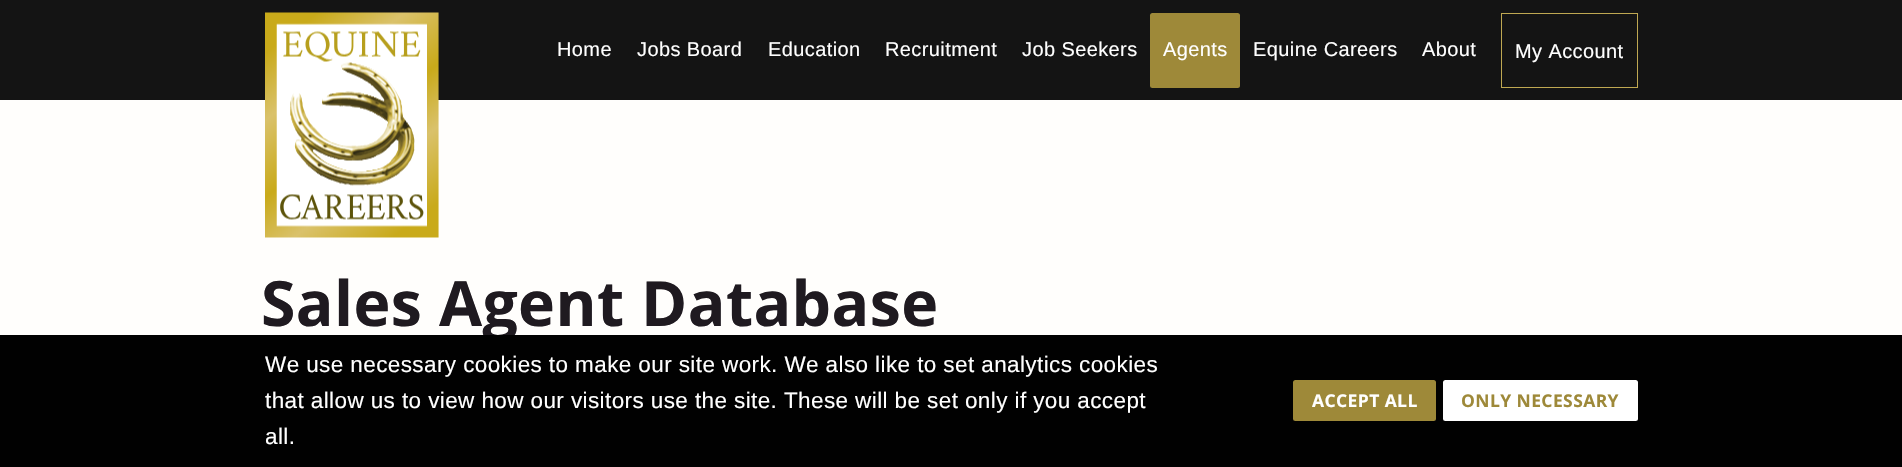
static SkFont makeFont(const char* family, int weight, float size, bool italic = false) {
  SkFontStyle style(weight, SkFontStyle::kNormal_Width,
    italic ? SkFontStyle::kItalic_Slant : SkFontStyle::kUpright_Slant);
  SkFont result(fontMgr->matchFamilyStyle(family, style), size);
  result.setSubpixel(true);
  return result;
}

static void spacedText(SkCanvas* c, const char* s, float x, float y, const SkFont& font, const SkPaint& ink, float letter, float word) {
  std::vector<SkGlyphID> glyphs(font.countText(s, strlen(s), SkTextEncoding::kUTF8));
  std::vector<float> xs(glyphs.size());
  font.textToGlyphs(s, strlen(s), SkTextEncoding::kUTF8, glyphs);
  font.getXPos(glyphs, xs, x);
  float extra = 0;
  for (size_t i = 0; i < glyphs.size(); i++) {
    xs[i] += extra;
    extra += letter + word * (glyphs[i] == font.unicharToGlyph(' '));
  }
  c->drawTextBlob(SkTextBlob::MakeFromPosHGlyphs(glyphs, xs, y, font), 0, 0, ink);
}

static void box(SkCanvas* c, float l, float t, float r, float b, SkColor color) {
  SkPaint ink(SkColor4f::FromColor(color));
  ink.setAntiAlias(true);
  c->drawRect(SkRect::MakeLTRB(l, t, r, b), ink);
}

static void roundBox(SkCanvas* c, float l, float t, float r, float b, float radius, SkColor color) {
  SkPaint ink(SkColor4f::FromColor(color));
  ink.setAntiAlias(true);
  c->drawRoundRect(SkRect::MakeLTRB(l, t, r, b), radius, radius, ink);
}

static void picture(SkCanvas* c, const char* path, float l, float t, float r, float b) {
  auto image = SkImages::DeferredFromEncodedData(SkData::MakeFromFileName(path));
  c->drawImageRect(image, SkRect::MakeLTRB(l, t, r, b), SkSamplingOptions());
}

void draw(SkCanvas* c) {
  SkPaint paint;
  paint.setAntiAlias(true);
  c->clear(0xfffffefc);
  box(c, 0, 0, 1902, 100, 0xff141414);
  picture(c, "img_01.png", 265, 12, 439, 238);
  SkFont face1 = makeFont("Liberation Sans", 400, 20);
  paint.setColor(0xffffffff);
  spacedText(c, "Home", 557, 56, face1, paint, 0.4f, 0);
  spacedText(c, "Jobs Board", 637, 56, face1, paint, 0.4f, 0);
  spacedText(c, "Education", 768, 56, face1, paint, 0.4f, 0);
  spacedText(c, "Recruitment", 885, 56, face1, paint, 0.4f, 0);
  spacedText(c, "Job Seekers", 1022, 56, face1, paint, 0.4f, 0);
  roundBox(c, 1150, 13, 1240, 88, 2.5f, 0xff9e8939);
  spacedText(c, "Agents", 1163, 56, face1, paint, 0.4f, 0);
  spacedText(c, "Equine Careers", 1253, 56, face1, paint, 0.4f, 0);
  spacedText(c, "About", 1422, 56, face1, paint, 0.4f, 0);
  paint.setStyle(SkPaint::kStroke_Style);
  paint.setStrokeWidth(1);
  paint.setColor(0xffbfa852);
  c->drawRect(SkRect::MakeLTRB(1501.5f, 13.5f, 1637.5f, 87.5f), paint);
  paint.setStyle(SkPaint::kFill_Style);
  paint.setColor(0xffffffff);
  spacedText(c, "My Account", 1515, 58, face1, paint, 0.4f, 0);
  SkFont face2 = makeFont("Open Sans", 700, 62.5f);
  paint.setColor(0xff1f1a20);
  spacedText(c, "Sales Agent Database", 261, 326, face2, paint, 0.4f, 0);
  box(c, 0, 335, 1902, 467, 0xff010101);
  SkFont face3 = makeFont("Liberation Sans", 400, 22.5f);
  paint.setColor(0xffffffff);
  spacedText(c, "We use necessary cookies to make our site work. We also like to set analytics cookies", 265, 372, face3, paint, 0.4f, 0);
  spacedText(c, "that allow us to view how our visitors use the site. These will be set only if you accept", 265, 408, face3, paint, 0.4f, 0);
  spacedText(c, "all.", 265, 444, face3, paint, 0.4f, 0);
  roundBox(c, 1293, 380, 1436, 421, 2.5f, 0xff9e8939);
  SkFont face4 = makeFont("Open Sans", 700, 17.5f);
  spacedText(c, "ACCEPT ALL", 1312, 407, face4, paint, 0.4f, 0);
  roundBox(c, 1443, 380, 1638, 421, 2.5f, 0xffffffff);
  paint.setColor(0xff9e8939);
  spacedText(c, "ONLY NECESSARY", 1461, 407, face4, paint, 0.4f, 0);
}
